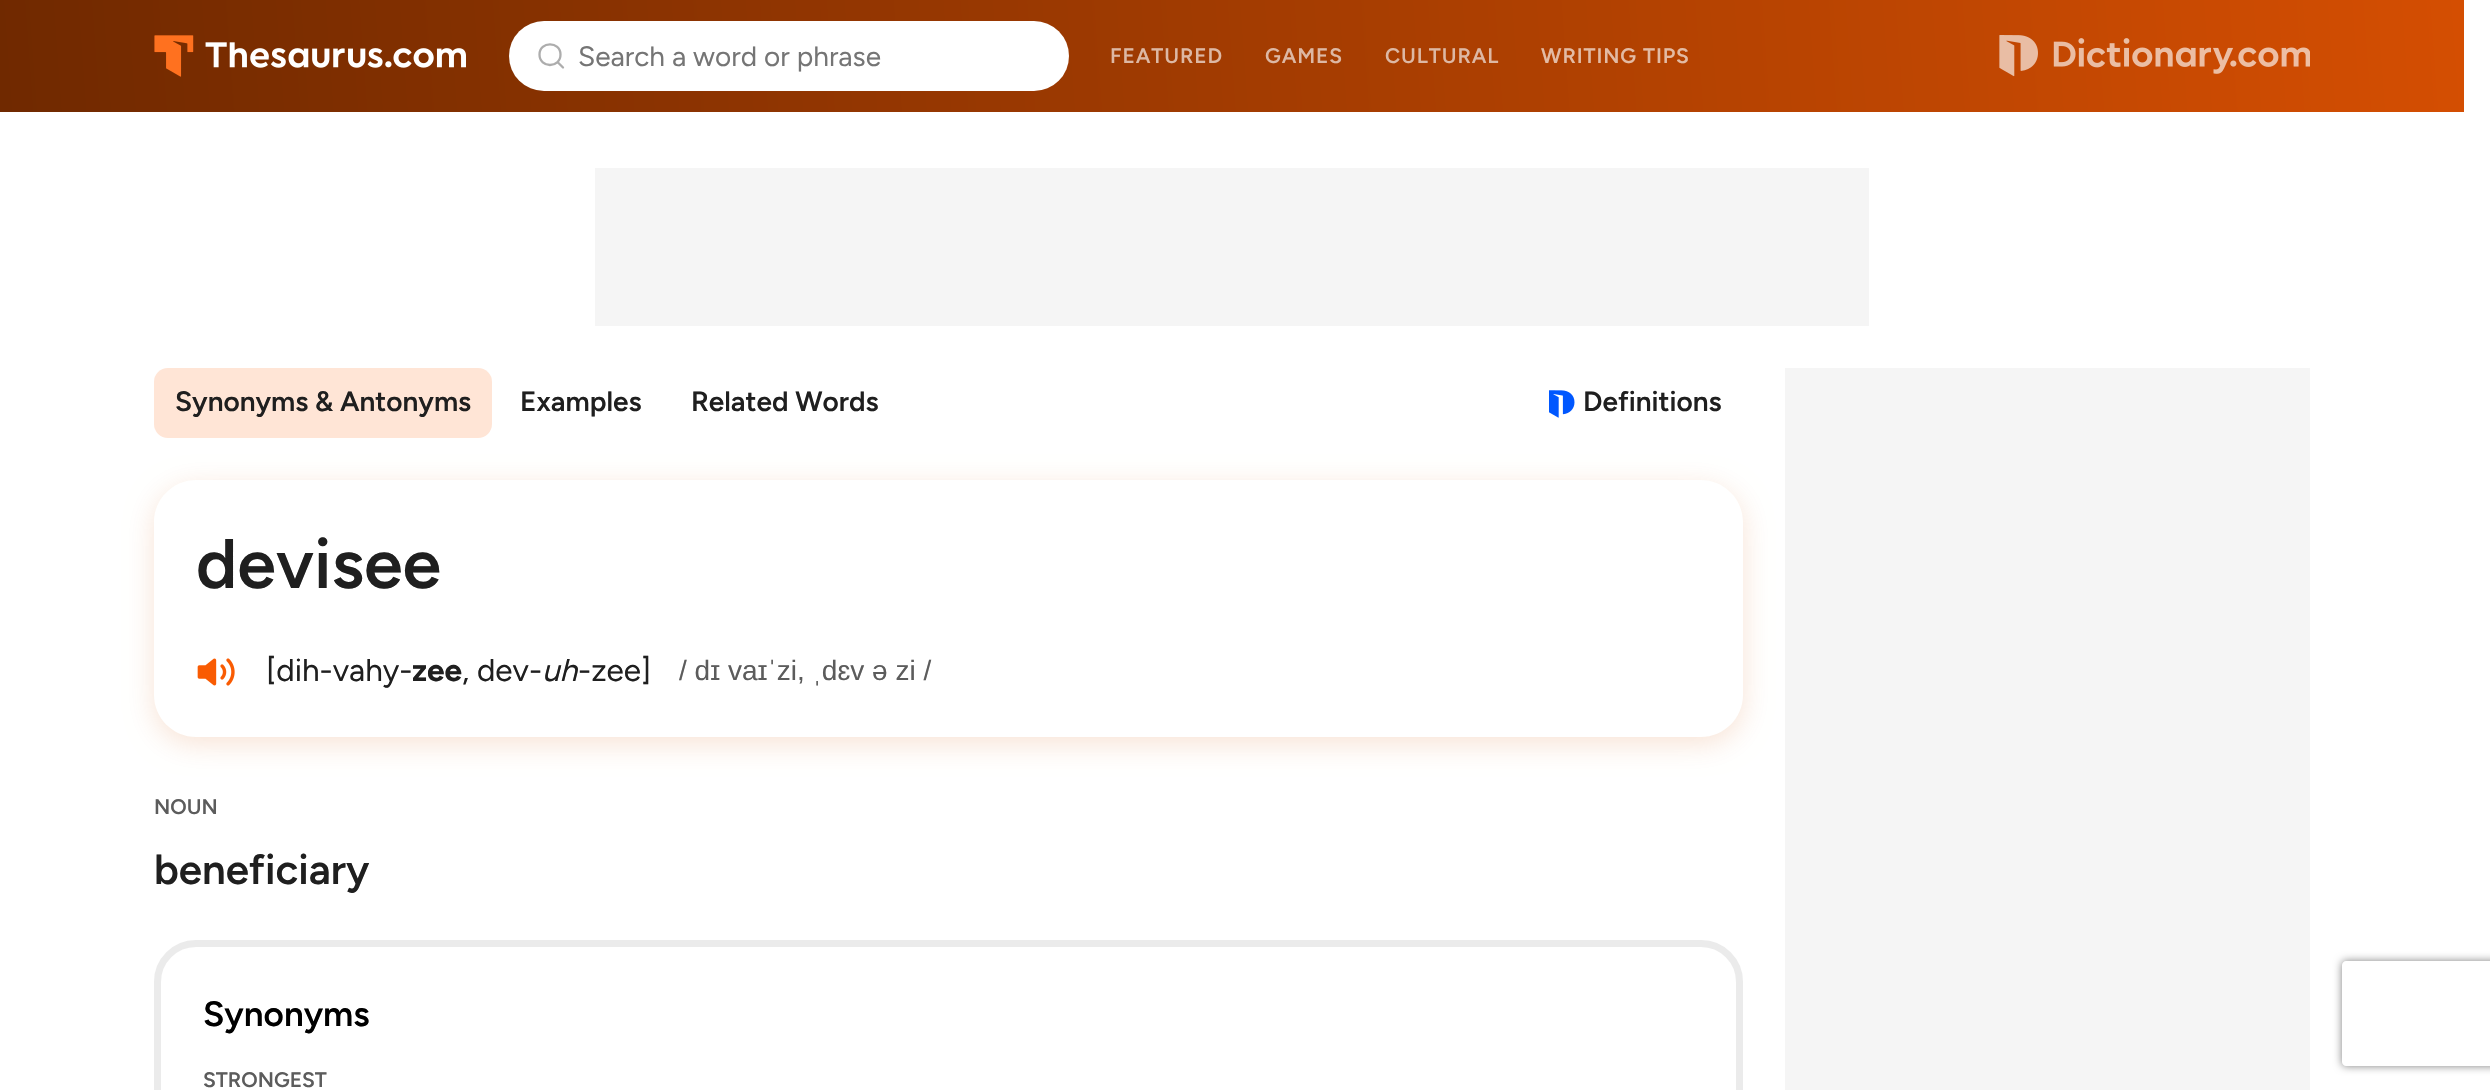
static SkFont makeFont(const char* family, int weight, float size, bool italic = false) {
  SkFontStyle style(weight, SkFontStyle::kNormal_Width,
    italic ? SkFontStyle::kItalic_Slant : SkFontStyle::kUpright_Slant);
  SkFont result(fontMgr->matchFamilyStyle(family, style), size);
  result.setSubpixel(true);
  return result;
}

static void text(SkCanvas* c, const char* s, float x, float y, const SkFont& font, SkColor color) {
  SkPaint ink(SkColor4f::FromColor(color));
  ink.setAntiAlias(true);
  c->drawString(s, x, y, font, ink);
}

static void spacedText(SkCanvas* c, const char* s, float x, float y, const SkFont& font, const SkPaint& ink, float letter, float word) {
  std::vector<SkGlyphID> glyphs(font.countText(s, strlen(s), SkTextEncoding::kUTF8));
  std::vector<float> xs(glyphs.size());
  font.textToGlyphs(s, strlen(s), SkTextEncoding::kUTF8, glyphs);
  font.getXPos(glyphs, xs, x);
  float extra = 0;
  for (size_t i = 0; i < glyphs.size(); i++) {
    xs[i] += extra;
    extra += letter + word * (glyphs[i] == font.unicharToGlyph(' '));
  }
  c->drawTextBlob(SkTextBlob::MakeFromPosHGlyphs(glyphs, xs, y, font), 0, 0, ink);
}

static void box(SkCanvas* c, float l, float t, float r, float b, SkColor color) {
  SkPaint ink(SkColor4f::FromColor(color));
  ink.setAntiAlias(true);
  c->drawRect(SkRect::MakeLTRB(l, t, r, b), ink);
}

static void roundBox(SkCanvas* c, float l, float t, float r, float b, float radius, SkColor color) {
  SkPaint ink(SkColor4f::FromColor(color));
  ink.setAntiAlias(true);
  c->drawRoundRect(SkRect::MakeLTRB(l, t, r, b), radius, radius, ink);
}

static void picture(SkCanvas* c, const char* path, float l, float t, float r, float b) {
  auto image = SkImages::DeferredFromEncodedData(SkData::MakeFromFileName(path));
  c->drawImageRect(image, SkRect::MakeLTRB(l, t, r, b), SkSamplingOptions());
}

void draw(SkCanvas* c) {
  SkPaint paint;
  paint.setAntiAlias(true);
  c->clear(0xffffffff);
  {
    const SkColor colors[] = {0xff702900, 0xffd44e02};
    const float stops[] = {0, 1};
    const SkPoint ends[] = {{2.5f, 146}, {2461, -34}};
    paint.setShader(SkGradientShader::MakeLinear(ends, colors, stops, 2, SkTileMode::kClamp));
    paint.setAlpha(255);
  }
  c->drawRect(SkRect::MakeLTRB(0, 0, 2464, 112), paint);
  picture(c, "img_01.png", 154, 35, 466, 77);
  roundBox(c, 509, 21, 1069, 91, 35, 0xffffffff);
  paint.setStyle(SkPaint::kStroke_Style);
  paint.setStrokeWidth(2.3f);
  paint.setStrokeCap(SkPaint::kRound_Cap);
  paint.setStrokeJoin(SkPaint::kRound_Join);
  paint.setShader(nullptr);
  paint.setColor(0xffadadad);
  c->drawPath(SkPathBuilder().moveTo(563, 67.5f).lineTo(557.5f, 62).moveTo(560.5f, 54.5f).cubicTo(560.5f, 68.5f, 539.5f, 68.5f, 539.5f, 54.5f).cubicTo(539.5f, 41, 560.5f, 41, 560.5f, 54.5f).close().detach(), paint);
  SkFont face1 = makeFont("Figtree", 400, 28);
  text(c, "Search a word or phrase", 578, 66, face1, 0xff757575);
  SkFont face2 = makeFont("Figtree", 600, 21);
  paint.setStyle(SkPaint::kFill_Style);
  paint.setColor(0xffddb8a4);
  spacedText(c, "FEATURED", 1110, 63, face2, paint, 0.9f, 0);
  spacedText(c, "GAMES", 1265, 63, face2, paint, 0.9f, 0);
  spacedText(c, "CULTURAL", 1385, 63, face2, paint, 0.9f, 0);
  paint.setColor(0xffe3bba4);
  spacedText(c, "WRITING TIPS", 1541, 63, face2, paint, 0.9f, 0);
  picture(c, "img_02.png", 1999, 35, 2310, 77);
  box(c, 595, 168, 1869, 326, 0xfff5f5f5);
  roundBox(c, 154, 368, 492, 438, 14, 0xffffe5d6);
  SkFont face3 = makeFont("Figtree", 600, 28);
  text(c, "Synonyms & Antonyms", 175, 411, face3, 0xff1f1f1f);
  text(c, "Examples", 520, 411, face3, 0xff1f1f1f);
  text(c, "Related Words", 691, 411, face3, 0xff1f1f1f);
  picture(c, "img_03.png", 1549, 390, 1575, 418);
  text(c, "Definitions", 1583, 411, face3, 0xff1f1f1f);
  c->save();
  c->clipPath(SkPathBuilder(SkPathFillType::kEvenOdd).moveTo(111, 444).lineTo(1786, 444).lineTo(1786, 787).lineTo(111, 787).close().moveTo(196, 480).lineTo(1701, 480).cubicTo(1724, 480, 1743, 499, 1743, 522).lineTo(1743, 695).cubicTo(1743, 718, 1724, 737, 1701, 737).lineTo(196, 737).cubicTo(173, 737, 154, 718, 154, 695).lineTo(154, 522).cubicTo(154, 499, 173, 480, 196, 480).close().detach(), true);
  paint.setColor(0x29d44e02);
  paint.setMaskFilter(SkMaskFilter::MakeBlur(kNormal_SkBlurStyle, 14));
  c->drawRoundRect(SkRect::MakeLTRB(154, 487, 1743, 744), 42, 42, paint);
  paint.setMaskFilter(nullptr);
  c->restore();
  SkFont face4 = makeFont("Figtree", 600, 70);
  text(c, "devisee", 196, 588, face4, 0xff1f1f1f);
  picture(c, "img_04.png", 197, 658, 235, 686);
  SkFont face5 = makeFont("Figtree", 400, 31.5f);
  text(c, "[dih-vahy-", 266, 681, face5, 0xff1f1f1f);
  SkFont face6 = makeFont("Figtree", 700, 31.5f);
  text(c, "zee", 412, 681, face6, 0xff1f1f1f);
  text(c, ", dev-", 462, 681, face5, 0xff1f1f1f);
  SkFont face7 = makeFont("Figtree", 400, 31.5f, true);
  text(c, "uh", 542, 681, face7, 0xff1f1f1f);
  text(c, "-zee]", 578, 681, face5, 0xff1f1f1f);
  SkFont face8 = makeFont("Liberation Sans", 400, 28);
  text(c, "/ dɪ vaɪˈzi, ˌdɛv ə zi /", 679, 680, face8, 0xff5c5c5c);
  text(c, "NOUN", 154, 814, face2, 0xff5c5c5c);
  SkFont face9 = makeFont("Figtree", 600, 42);
  text(c, "beneficiary", 154, 884, face9, 0xff1f1f1f);
  paint.setStyle(SkPaint::kStroke_Style);
  paint.setStrokeWidth(7);
  paint.setStrokeCap(SkPaint::kButt_Cap);
  paint.setStrokeJoin(SkPaint::kMiter_Join);
  paint.setColor(0xffebebeb);
  c->drawRoundRect(SkRect::MakeLTRB(157.5f, 943.5f, 1739.5f, 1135.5f), 38.5f, 38.5f, paint);
  SkFont face10 = makeFont("Figtree", 600, 35);
  text(c, "Synonyms", 203, 1026, face10, 0xff000000);
  text(c, "STRONGEST", 203, 1087, face2, 0xff5c5c5c);
  box(c, 1785, 368, 2310, 1090, 0xfff5f5f5);
  c->save();
  c->clipPath(SkPathBuilder(SkPathFillType::kEvenOdd).moveTo(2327, 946).lineTo(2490, 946).lineTo(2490, 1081).lineTo(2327, 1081).close().moveTo(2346, 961).lineTo(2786, 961).cubicTo(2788, 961, 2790, 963, 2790, 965).lineTo(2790, 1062).cubicTo(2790, 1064, 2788, 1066, 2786, 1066).lineTo(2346, 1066).cubicTo(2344, 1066, 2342, 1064, 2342, 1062).lineTo(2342, 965).cubicTo(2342, 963, 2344, 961, 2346, 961).close().detach(), true);
  paint.setStyle(SkPaint::kFill_Style);
  paint.setColor(0xff808080);
  paint.setMaskFilter(SkMaskFilter::MakeBlur(kNormal_SkBlurStyle, 4.5f));
  c->drawRoundRect(SkRect::MakeLTRB(2342, 961, 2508, 1066), 4, 4, paint);
  paint.setMaskFilter(nullptr);
  c->restore();
}
